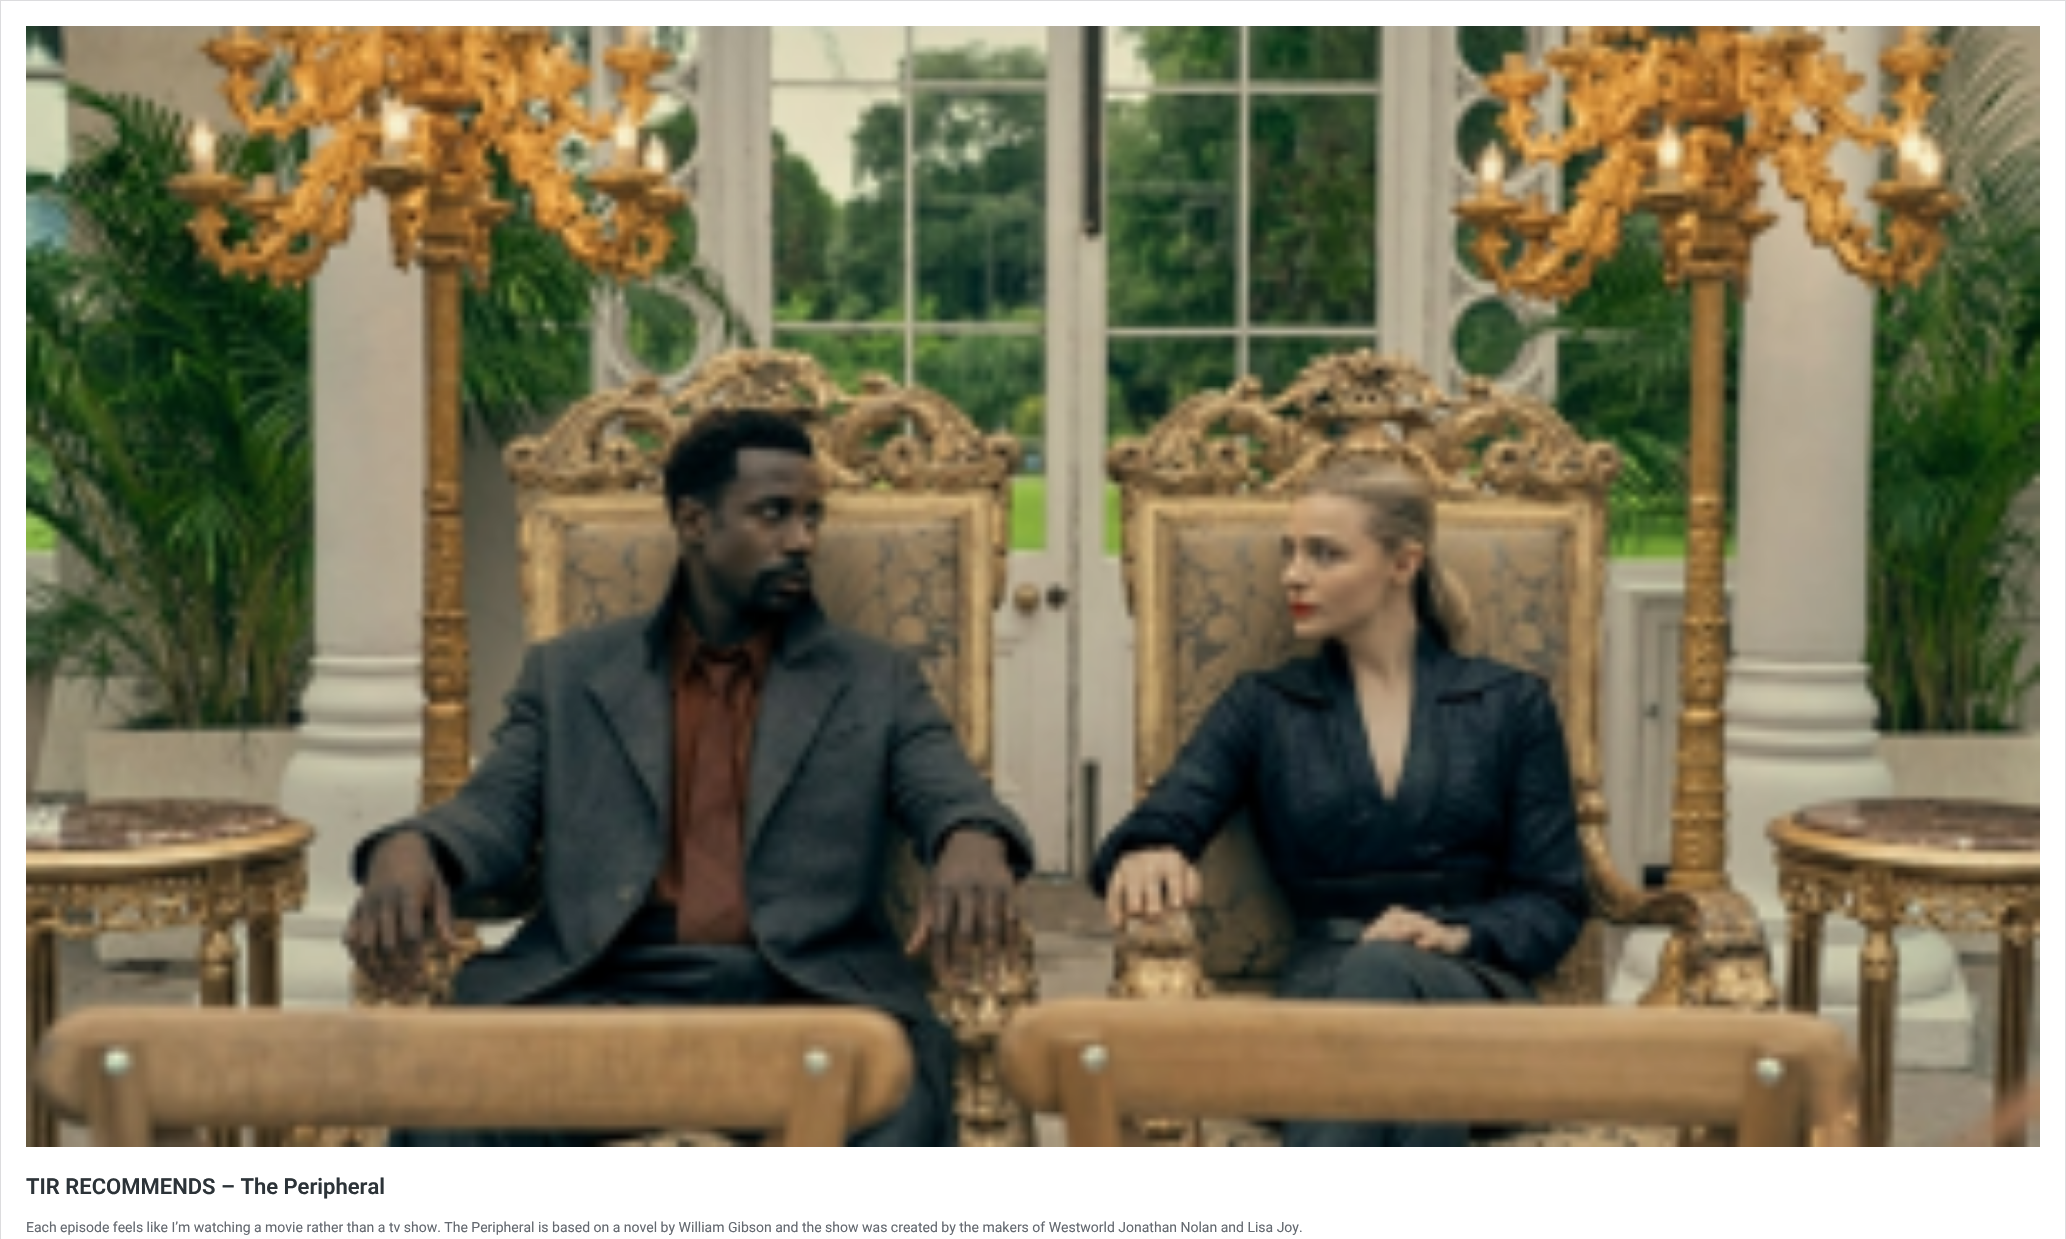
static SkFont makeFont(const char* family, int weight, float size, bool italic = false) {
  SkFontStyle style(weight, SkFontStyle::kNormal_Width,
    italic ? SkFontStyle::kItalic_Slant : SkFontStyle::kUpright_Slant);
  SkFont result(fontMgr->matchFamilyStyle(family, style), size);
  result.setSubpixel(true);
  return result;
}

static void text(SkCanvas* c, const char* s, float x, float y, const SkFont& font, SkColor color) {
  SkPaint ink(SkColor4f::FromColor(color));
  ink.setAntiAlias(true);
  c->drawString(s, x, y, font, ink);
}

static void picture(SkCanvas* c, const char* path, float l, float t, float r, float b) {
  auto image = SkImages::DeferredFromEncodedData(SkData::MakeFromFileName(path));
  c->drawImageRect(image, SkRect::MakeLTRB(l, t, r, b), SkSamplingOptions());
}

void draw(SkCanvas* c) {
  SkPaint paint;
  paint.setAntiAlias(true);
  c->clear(0xffffffff);
  paint.setStyle(SkPaint::kStroke_Style);
  paint.setStrokeWidth(1);
  paint.setColor(0xffdcdcde);
  c->drawRect(SkRect::MakeLTRB(0.5f, 0.5f, 2065.5f, 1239.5f), paint);
  picture(c, "img_01.png", 26, 26, 2040, 1147);
  SkFont face1 = makeFont("Roboto", 600, 22);
  text(c, "TIR RECOMMENDS – The Peripheral", 26, 1194, face1, 0xff2c3338);
  SkFont face2 = makeFont("Roboto", 400, 14);
  text(c, "Each episode feels like I’m watching a movie rather than a tv show. The Peripheral is based on a novel by William Gibson and the show was created by the makers of Westworld Jonathan Nolan and Lisa Joy.", 26, 1232, face2, 0xff646970);
}
